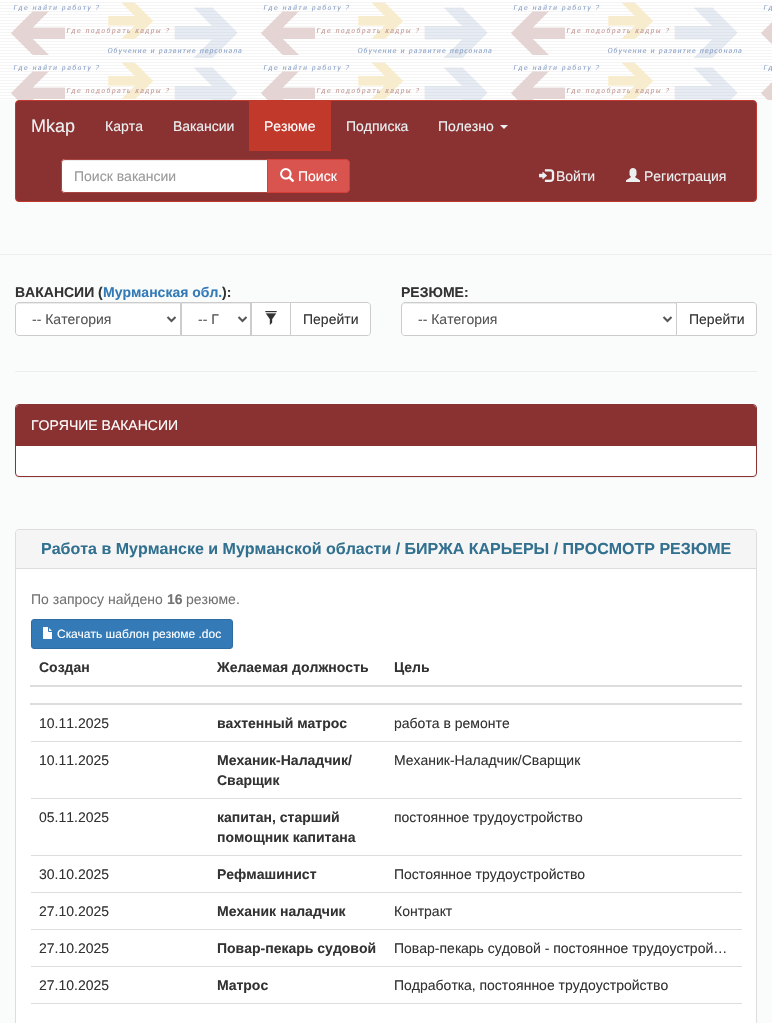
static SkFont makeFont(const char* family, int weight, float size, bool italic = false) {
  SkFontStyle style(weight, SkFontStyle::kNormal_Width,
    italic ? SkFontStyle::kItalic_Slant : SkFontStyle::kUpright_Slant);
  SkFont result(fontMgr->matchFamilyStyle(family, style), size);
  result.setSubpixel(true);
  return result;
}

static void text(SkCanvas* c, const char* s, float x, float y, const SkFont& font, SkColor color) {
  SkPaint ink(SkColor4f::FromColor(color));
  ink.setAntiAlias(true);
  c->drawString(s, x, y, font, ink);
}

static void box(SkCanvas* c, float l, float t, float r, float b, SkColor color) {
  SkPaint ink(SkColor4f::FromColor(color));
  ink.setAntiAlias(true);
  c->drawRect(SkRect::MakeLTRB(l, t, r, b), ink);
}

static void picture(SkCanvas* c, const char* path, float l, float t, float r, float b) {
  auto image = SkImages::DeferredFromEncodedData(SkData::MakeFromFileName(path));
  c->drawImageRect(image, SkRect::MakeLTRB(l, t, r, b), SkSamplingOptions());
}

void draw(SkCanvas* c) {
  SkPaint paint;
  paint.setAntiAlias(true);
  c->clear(0xfffafcfc);
  picture(c, "img_01.png", 0, 0, 772, 100);
  paint.setColor(0xff8a3131);
  c->drawRoundRect(SkRect::MakeLTRB(15.5f, 100.5f, 756.5f, 201.5f), 3.5f, 3.5f, paint);
  paint.setStyle(SkPaint::kStroke_Style);
  paint.setStrokeWidth(1);
  paint.setColor(0xffc0392b);
  c->drawRoundRect(SkRect::MakeLTRB(15.5f, 100.5f, 756.5f, 201.5f), 3.5f, 3.5f, paint);
  SkFont face1 = makeFont("Liberation Sans", 400, 18);
  text(c, "Mkap", 31, 132, face1, 0xffecf0f1);
  SkFont face2 = makeFont("Liberation Sans", 400, 14);
  text(c, "Карта", 105, 131, face2, 0xffecf0f1);
  text(c, "Вакансии", 173, 131, face2, 0xffecf0f1);
  box(c, 249, 101, 331, 151, 0xffc0392b);
  text(c, "Резюме", 264, 131, face2, 0xffffffff);
  text(c, "Подписка", 346, 131, face2, 0xffecf0f1);
  text(c, "Полезно", 438, 131, face2, 0xffecf0f1);
  paint.setStyle(SkPaint::kFill_Style);
  paint.setColor(0xffecf0f1);
  c->drawPath(SkPathBuilder().moveTo(500, 125).lineTo(508, 125).lineTo(504, 129).close().detach(), paint);
  paint.setColor(0xffffffff);
  c->drawPath(SkPathBuilder().moveTo(65, 159).lineTo(268, 159).lineTo(268, 193).lineTo(65, 193).cubicTo(63, 193, 61, 191, 61, 189).lineTo(61, 163).cubicTo(61, 161, 63, 159, 65, 159).close().detach(), paint);
  paint.setColor(0xffececec);
  c->drawPath(SkPathBuilder().moveTo(65, 161).lineTo(267, 161).lineTo(267, 160).lineTo(64, 160).cubicTo(62, 161, 62, 162, 62, 164).cubicTo(62, 162, 63, 161, 65, 161).close().detach(), paint);
  paint.setStyle(SkPaint::kStroke_Style);
  paint.setColor(0xffa94442);
  c->drawPath(SkPathBuilder().moveTo(65, 159.5f).lineTo(267.5f, 159.5f).lineTo(267.5f, 192.5f).lineTo(65, 192.5f).cubicTo(63, 192.5f, 61.5f, 191, 61.5f, 189).lineTo(61.5f, 163).cubicTo(61.5f, 161, 63, 159.5f, 65, 159.5f).close().detach(), paint);
  text(c, "Поиск вакансии", 74, 181, face2, 0xff999999);
  paint.setStyle(SkPaint::kFill_Style);
  paint.setColor(0xffd9534f);
  c->drawPath(SkPathBuilder().moveTo(267.5f, 159.5f).lineTo(346, 159.5f).cubicTo(348, 159.5f, 349.5f, 161, 349.5f, 163).lineTo(349.5f, 189).cubicTo(349.5f, 191, 348, 192.5f, 346, 192.5f).lineTo(267.5f, 192.5f).close().detach(), paint);
  paint.setStyle(SkPaint::kStroke_Style);
  paint.setColor(0xffd43f3a);
  c->drawPath(SkPathBuilder().moveTo(267.5f, 159.5f).lineTo(346, 159.5f).cubicTo(348, 159.5f, 349.5f, 161, 349.5f, 163).lineTo(349.5f, 189).cubicTo(349.5f, 191, 348, 192.5f, 346, 192.5f).lineTo(267.5f, 192.5f).close().detach(), paint);
  picture(c, "img_02.png", 280, 168, 295, 182);
  text(c, "Поиск", 298, 181, face2, 0xffffffff);
  picture(c, "img_03.png", 539, 169, 555, 182);
  text(c, "Войти", 556, 181, face2, 0xffecf0f1);
  picture(c, "img_04.png", 626, 168, 640, 182);
  text(c, "Регистрация", 644, 181, face2, 0xffecf0f1);
  box(c, 0, 254, 772, 255, 0xffeeeeee);
  SkFont face3 = makeFont("Liberation Sans", 700, 14);
  text(c, "ВАКАНСИИ (", 15, 297, face3, 0xff333333);
  text(c, "Мурманская обл.", 103, 297, face3, 0xff337ab7);
  text(c, "):", 222, 297, face3, 0xff333333);
  paint.setStyle(SkPaint::kFill_Style);
  paint.setColor(0xffffffff);
  c->drawPath(SkPathBuilder().moveTo(19, 302).lineTo(181, 302).lineTo(181, 336).lineTo(19, 336).cubicTo(17, 336, 15, 334, 15, 332).lineTo(15, 306).cubicTo(15, 304, 17, 302, 19, 302).close().detach(), paint);
  paint.setColor(0xffececec);
  c->drawPath(SkPathBuilder().moveTo(19, 304).lineTo(180, 304).lineTo(180, 303).lineTo(19, 303).cubicTo(17, 303, 16, 305, 16, 307).cubicTo(16, 305, 17, 304, 19, 304).close().detach(), paint);
  paint.setStyle(SkPaint::kStroke_Style);
  paint.setColor(0xffcccccc);
  c->drawPath(SkPathBuilder().moveTo(19, 302.5f).lineTo(180.5f, 302.5f).lineTo(180.5f, 335.5f).lineTo(19, 335.5f).cubicTo(17, 335.5f, 15.5f, 334, 15.5f, 332).lineTo(15.5f, 306).cubicTo(15.5f, 304, 17, 302.5f, 19, 302.5f).close().detach(), paint);
  paint.setStrokeWidth(2);
  paint.setColor(0xff555555);
  c->drawPath(SkPathBuilder().moveTo(167.5f, 317).lineTo(171.5f, 321).lineTo(175.5f, 317).detach(), paint);
  text(c, "-- Категория", 32, 324, face2, 0xff555555);
  box(c, 182, 304, 250, 335, 0xffffffff);
  box(c, 182, 303, 250, 304, 0xffececec);
  paint.setStrokeWidth(1);
  paint.setColor(0xffcccccc);
  c->drawRect(SkRect::MakeLTRB(181.5f, 302.5f, 250.5f, 335.5f), paint);
  paint.setStrokeWidth(2);
  paint.setColor(0xff555555);
  c->drawPath(SkPathBuilder().moveTo(238.5f, 317).lineTo(242.5f, 321).lineTo(246.5f, 317).detach(), paint);
  text(c, "-- Г", 198, 324, face2, 0xff555555);
  paint.setStyle(SkPaint::kFill_Style);
  paint.setColor(0xffffffff);
  c->drawRect(SkRect::MakeLTRB(251.5f, 302.5f, 290.5f, 335.5f), paint);
  paint.setStyle(SkPaint::kStroke_Style);
  paint.setStrokeWidth(1);
  paint.setColor(0xffcccccc);
  c->drawRect(SkRect::MakeLTRB(251.5f, 302.5f, 290.5f, 335.5f), paint);
  picture(c, "img_05.png", 265, 311, 277, 325);
  paint.setStyle(SkPaint::kFill_Style);
  paint.setColor(0xffffffff);
  c->drawPath(SkPathBuilder().moveTo(290.5f, 302.5f).lineTo(367, 302.5f).cubicTo(369, 302.5f, 370.5f, 304, 370.5f, 306).lineTo(370.5f, 332).cubicTo(370.5f, 334, 369, 335.5f, 367, 335.5f).lineTo(290.5f, 335.5f).close().detach(), paint);
  paint.setStyle(SkPaint::kStroke_Style);
  paint.setColor(0xffcccccc);
  c->drawPath(SkPathBuilder().moveTo(290.5f, 302.5f).lineTo(367, 302.5f).cubicTo(369, 302.5f, 370.5f, 304, 370.5f, 306).lineTo(370.5f, 332).cubicTo(370.5f, 334, 369, 335.5f, 367, 335.5f).lineTo(290.5f, 335.5f).close().detach(), paint);
  text(c, "Перейти", 303, 324, face2, 0xff333333);
  text(c, "РЕЗЮМЕ:", 401, 297, face3, 0xff333333);
  paint.setStyle(SkPaint::kFill_Style);
  paint.setColor(0xffffffff);
  c->drawPath(SkPathBuilder().moveTo(405, 302).lineTo(677, 302).lineTo(677, 336).lineTo(405, 336).cubicTo(403, 336, 401, 334, 401, 332).lineTo(401, 306).cubicTo(401, 304, 403, 302, 405, 302).close().detach(), paint);
  paint.setColor(0xffececec);
  c->drawPath(SkPathBuilder().moveTo(405, 304).lineTo(676, 304).lineTo(676, 303).lineTo(405, 303).cubicTo(403, 303, 402, 304, 402, 306).lineTo(402, 307).cubicTo(402, 305, 403, 304, 405, 304).close().detach(), paint);
  paint.setStyle(SkPaint::kStroke_Style);
  paint.setColor(0xffcccccc);
  c->drawPath(SkPathBuilder().moveTo(405, 302.5f).lineTo(676.5f, 302.5f).lineTo(676.5f, 335.5f).lineTo(405, 335.5f).cubicTo(403, 335.5f, 401.5f, 334, 401.5f, 332).lineTo(401.5f, 306).cubicTo(401.5f, 304, 403, 302.5f, 405, 302.5f).close().detach(), paint);
  paint.setStrokeWidth(2);
  paint.setColor(0xff555555);
  c->drawPath(SkPathBuilder().moveTo(663.5f, 317).lineTo(667.5f, 321).lineTo(671.5f, 317).detach(), paint);
  text(c, "-- Категория", 418, 324, face2, 0xff555555);
  paint.setStyle(SkPaint::kFill_Style);
  paint.setColor(0xffffffff);
  c->drawPath(SkPathBuilder().moveTo(676.5f, 302.5f).lineTo(753, 302.5f).cubicTo(755, 302.5f, 756.5f, 304, 756.5f, 306).lineTo(756.5f, 332).cubicTo(756.5f, 334, 755, 335.5f, 753, 335.5f).lineTo(676.5f, 335.5f).close().detach(), paint);
  paint.setStyle(SkPaint::kStroke_Style);
  paint.setStrokeWidth(1);
  paint.setColor(0xffcccccc);
  c->drawPath(SkPathBuilder().moveTo(676.5f, 302.5f).lineTo(753, 302.5f).cubicTo(755, 302.5f, 756.5f, 304, 756.5f, 306).lineTo(756.5f, 332).cubicTo(756.5f, 334, 755, 335.5f, 753, 335.5f).lineTo(676.5f, 335.5f).close().detach(), paint);
  text(c, "Перейти", 689, 324, face2, 0xff333333);
  box(c, 15, 371, 757, 372, 0xffeeeeee);
  paint.setStyle(SkPaint::kFill_Style);
  paint.setColor(0x0d000000);
  paint.setMaskFilter(SkMaskFilter::MakeBlur(kNormal_SkBlurStyle, 0.5f));
  c->drawRoundRect(SkRect::MakeLTRB(15, 405, 757, 478), 4, 4, paint);
  paint.setMaskFilter(nullptr);
  paint.setColor(0xffffffff);
  c->drawRoundRect(SkRect::MakeLTRB(15.5f, 404.5f, 756.5f, 476.5f), 3.5f, 3.5f, paint);
  paint.setStyle(SkPaint::kStroke_Style);
  paint.setColor(0xff8a3131);
  c->drawRoundRect(SkRect::MakeLTRB(15.5f, 404.5f, 756.5f, 476.5f), 3.5f, 3.5f, paint);
  paint.setStyle(SkPaint::kFill_Style);
  c->drawPath(SkPathBuilder().moveTo(19, 405).lineTo(753, 405).cubicTo(754.5f, 405, 756, 406.5f, 756, 408).lineTo(756, 446).lineTo(16, 446).lineTo(16, 408).cubicTo(16, 406.5f, 17.5f, 405, 19, 405).close().detach(), paint);
  text(c, "ГОРЯЧИЕ ВАКАНСИИ", 31, 430, face2, 0xffffffff);
  paint.setColor(0xffffffff);
  c->drawRoundRect(SkRect::MakeLTRB(15.5f, 529.5f, 756.5f, 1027.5f), 3.5f, 3.5f, paint);
  paint.setStyle(SkPaint::kStroke_Style);
  paint.setColor(0xffdddddd);
  c->drawRoundRect(SkRect::MakeLTRB(15.5f, 529.5f, 756.5f, 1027.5f), 3.5f, 3.5f, paint);
  paint.setStyle(SkPaint::kFill_Style);
  paint.setColor(0xfff5f5f5);
  c->drawPath(SkPathBuilder().moveTo(19, 530).lineTo(753, 530).cubicTo(754.5f, 530, 756, 531.5f, 756, 533).lineTo(756, 569).lineTo(16, 569).lineTo(16, 533).cubicTo(16, 531.5f, 17.5f, 530, 19, 530).close().detach(), paint);
  box(c, 16, 568, 756, 569, 0xffdddddd);
  SkFont face4 = makeFont("Liberation Sans", 700, 16);
  text(c, "Работа в Мурманске и Мурманской области / БИРЖА КАРЬЕРЫ / ПРОСМОТР РЕЗЮМЕ", 41, 554, face4, 0xff31708f);
  text(c, "По запросу найдено", 31, 604, face2, 0xff737373);
  text(c, "16", 167, 604, face3, 0xff737373);
  text(c, "резюме.", 186, 604, face2, 0xff737373);
  paint.setColor(0xff337ab7);
  c->drawRoundRect(SkRect::MakeLTRB(31.5f, 619.5f, 232.5f, 648.5f), 2.5f, 2.5f, paint);
  paint.setStyle(SkPaint::kStroke_Style);
  paint.setColor(0xff2e6da4);
  c->drawRoundRect(SkRect::MakeLTRB(31.5f, 619.5f, 232.5f, 648.5f), 2.5f, 2.5f, paint);
  picture(c, "img_06.png", 43, 627, 52, 639);
  SkFont face5 = makeFont("Liberation Sans", 400, 12);
  text(c, "Скачать шаблон резюме .doc", 57, 638, face5, 0xffffffff);
  text(c, "Создан", 39, 672, face3, 0xff333333);
  text(c, "Желаемая должность", 217, 672, face3, 0xff333333);
  box(c, 30, 685, 742, 687, 0xffdddddd);
  text(c, "Цель", 394, 672, face3, 0xff333333);
  box(c, 30, 703, 742, 705, 0xffdddddd);
  text(c, "10.11.2025", 39, 728, face2, 0xff333333);
  text(c, "вахтенный матрос", 217, 728, face3, 0xff333333);
  text(c, "работа в ремонте", 394, 728, face2, 0xff333333);
  text(c, "10.11.2025", 39, 765, face2, 0xff333333);
  text(c, "Механик-Наладчик/", 217, 765, face3, 0xff333333);
  text(c, "Сварщик", 217, 785, face3, 0xff333333);
  box(c, 31, 741, 742, 742, 0xffdddddd);
  text(c, "Механик-Наладчик/Сварщик", 394, 765, face2, 0xff333333);
  text(c, "05.11.2025", 39, 822, face2, 0xff333333);
  text(c, "капитан, старший", 217, 822, face3, 0xff333333);
  text(c, "помощник капитана", 217, 842, face3, 0xff333333);
  box(c, 31, 798, 742, 799, 0xffdddddd);
  text(c, "постоянное трудоустройство", 394, 822, face2, 0xff333333);
  text(c, "30.10.2025", 39, 879, face2, 0xff333333);
  text(c, "Рефмашинист", 217, 879, face3, 0xff333333);
  box(c, 31, 855, 742, 856, 0xffdddddd);
  text(c, "Постоянное трудоустройство", 394, 879, face2, 0xff333333);
  text(c, "27.10.2025", 39, 916, face2, 0xff333333);
  text(c, "Механик наладчик", 217, 916, face3, 0xff333333);
  box(c, 31, 892, 742, 893, 0xffdddddd);
  text(c, "Контракт", 394, 916, face2, 0xff333333);
  text(c, "27.10.2025", 39, 953, face2, 0xff333333);
  text(c, "Повар-пекарь судовой", 217, 953, face3, 0xff333333);
  box(c, 31, 929, 742, 930, 0xffdddddd);
  text(c, "Повар-пекарь судовой - постоянное трудоустрой…", 394, 953, face2, 0xff333333);
  text(c, "27.10.2025", 39, 990, face2, 0xff333333);
  text(c, "Матрос", 217, 990, face3, 0xff333333);
  box(c, 31, 966, 742, 967, 0xffdddddd);
  text(c, "Подработка, постоянное трудоустройство", 394, 990, face2, 0xff333333);
  box(c, 31, 1003, 742, 1004, 0xffdddddd);
}
